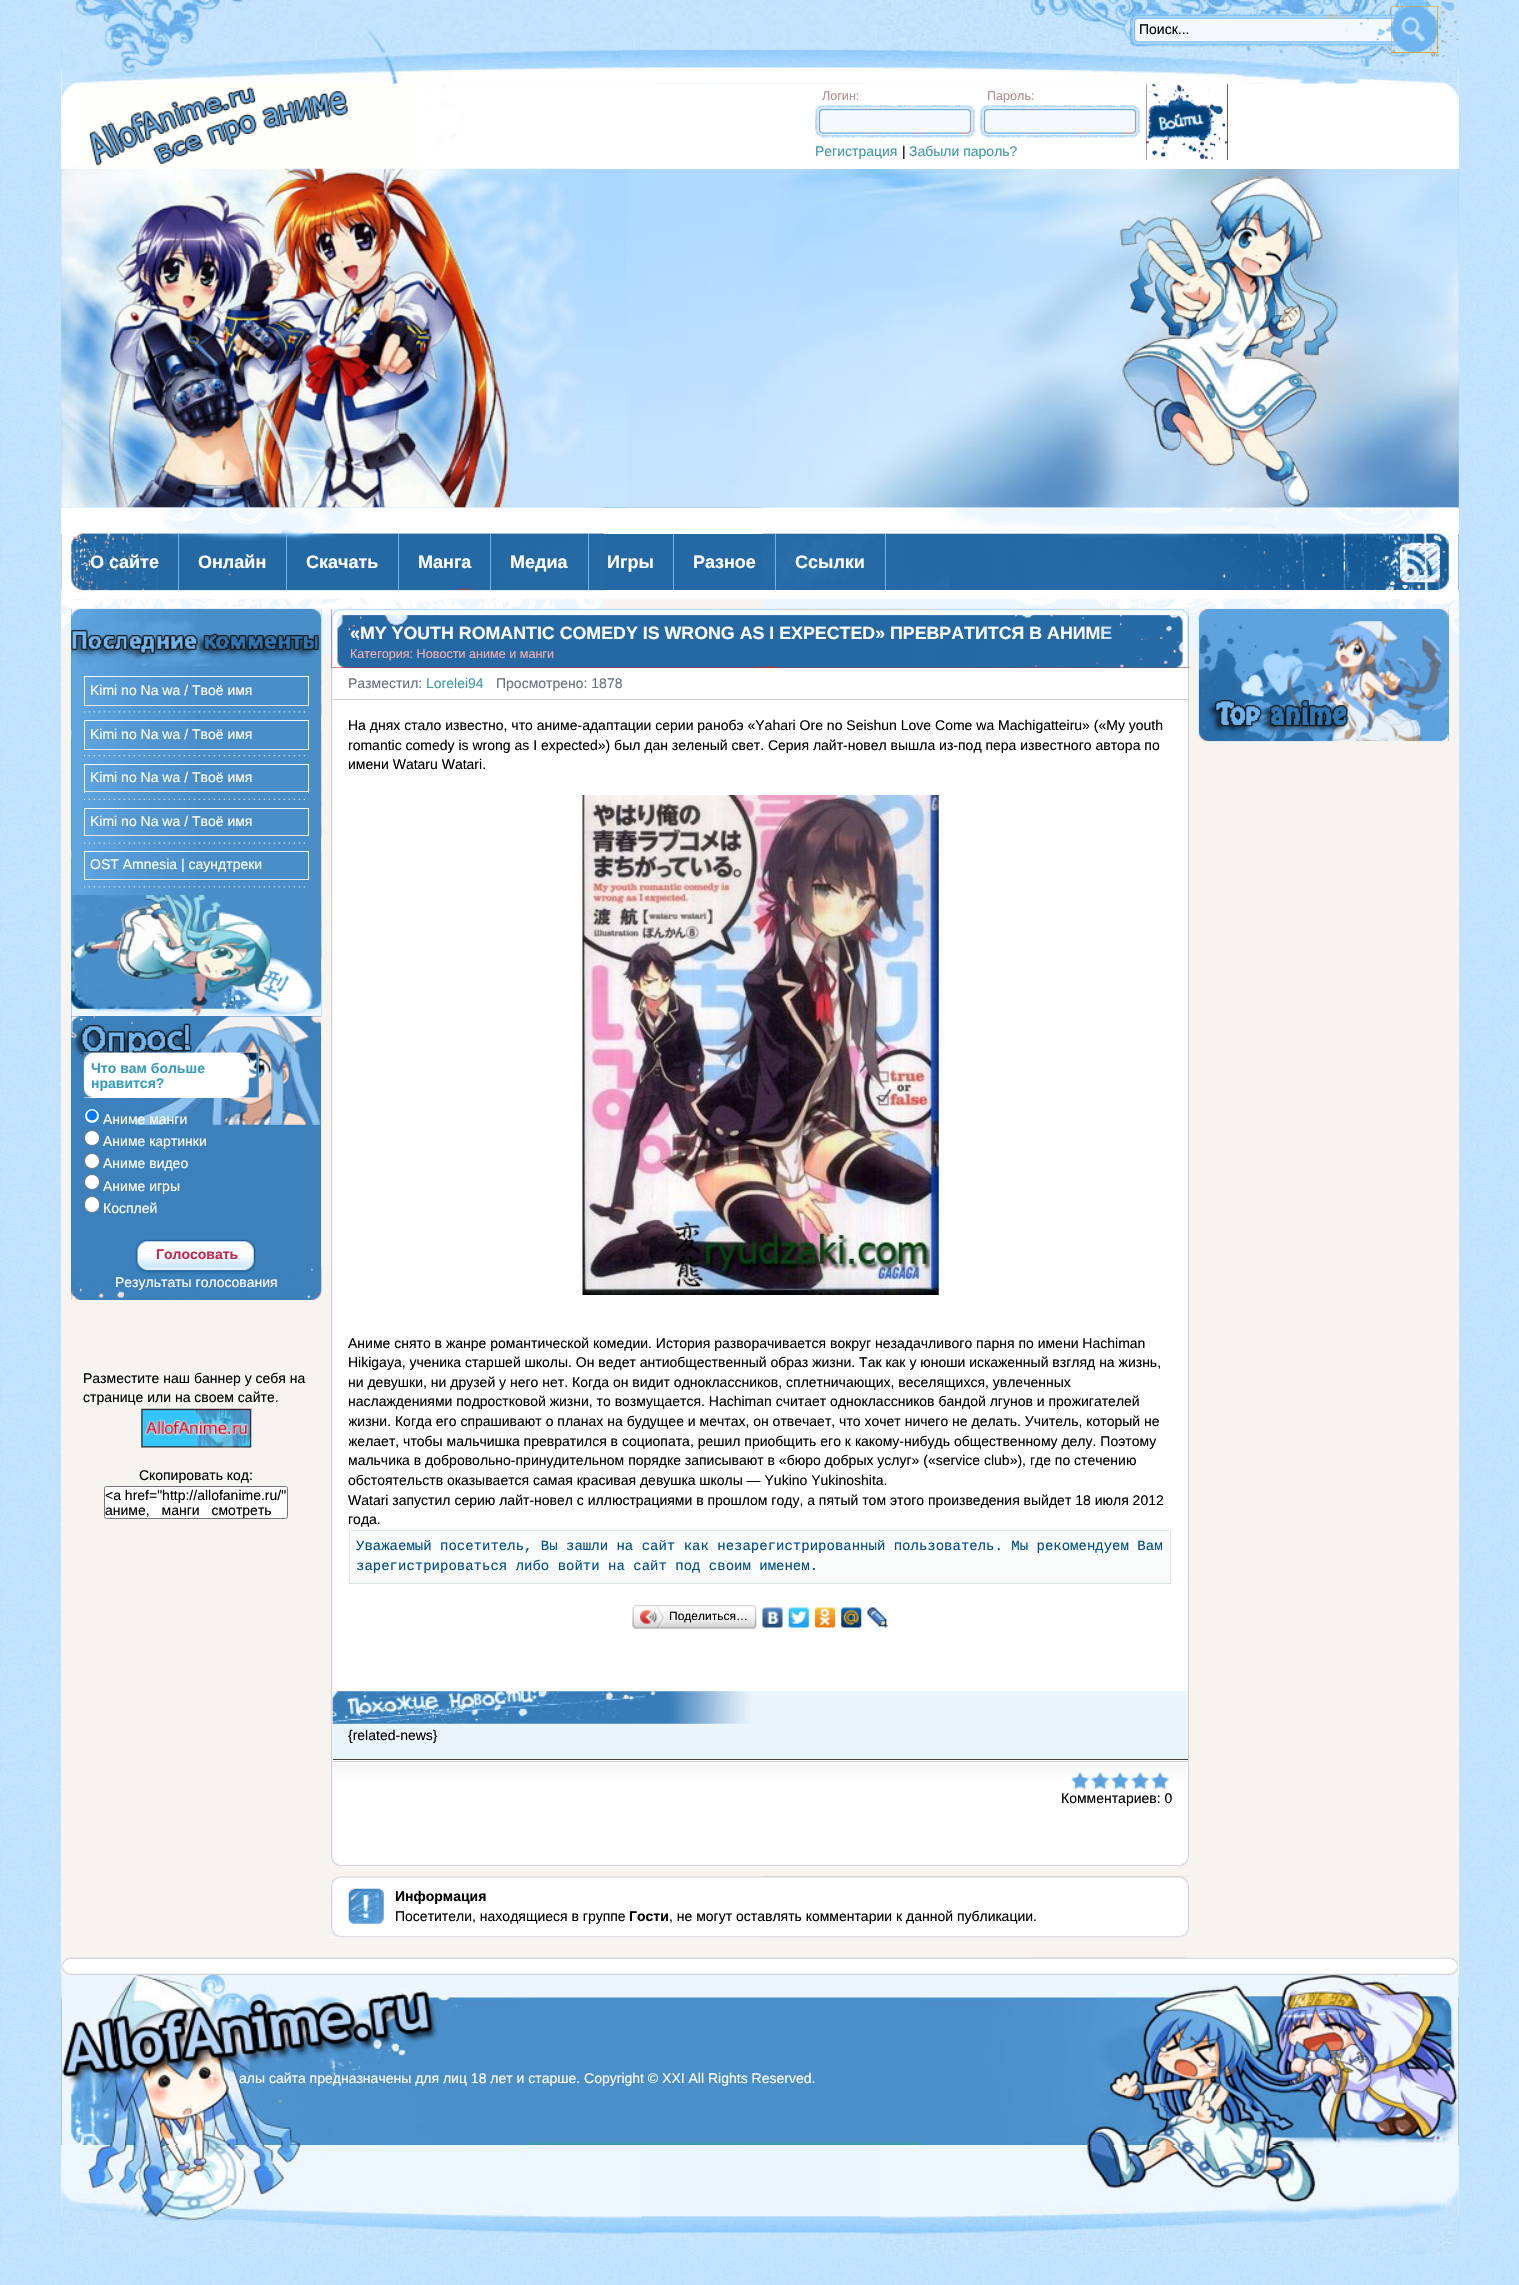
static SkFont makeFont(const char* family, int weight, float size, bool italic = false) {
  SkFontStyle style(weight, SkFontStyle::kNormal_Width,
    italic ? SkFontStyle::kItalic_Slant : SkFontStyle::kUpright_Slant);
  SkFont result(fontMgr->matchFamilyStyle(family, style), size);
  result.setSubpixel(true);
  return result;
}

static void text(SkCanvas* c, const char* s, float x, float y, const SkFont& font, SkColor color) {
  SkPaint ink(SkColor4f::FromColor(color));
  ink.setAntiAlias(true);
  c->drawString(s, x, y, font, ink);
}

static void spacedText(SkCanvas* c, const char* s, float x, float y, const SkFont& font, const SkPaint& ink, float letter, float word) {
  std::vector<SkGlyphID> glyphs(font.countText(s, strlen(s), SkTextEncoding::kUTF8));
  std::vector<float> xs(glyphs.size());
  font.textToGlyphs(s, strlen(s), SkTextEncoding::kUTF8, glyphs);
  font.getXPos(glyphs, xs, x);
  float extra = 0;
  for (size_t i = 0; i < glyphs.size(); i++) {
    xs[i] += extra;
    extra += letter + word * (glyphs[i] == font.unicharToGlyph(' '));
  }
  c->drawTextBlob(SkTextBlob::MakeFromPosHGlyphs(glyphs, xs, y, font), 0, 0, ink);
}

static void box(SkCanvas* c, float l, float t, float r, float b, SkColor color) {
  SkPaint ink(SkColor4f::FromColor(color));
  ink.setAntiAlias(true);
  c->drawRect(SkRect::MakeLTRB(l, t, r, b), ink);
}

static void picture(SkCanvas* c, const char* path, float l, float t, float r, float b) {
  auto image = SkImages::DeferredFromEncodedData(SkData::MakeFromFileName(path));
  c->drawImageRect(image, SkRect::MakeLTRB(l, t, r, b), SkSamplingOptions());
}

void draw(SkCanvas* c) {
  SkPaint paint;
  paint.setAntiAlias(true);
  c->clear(0xffffffff);
  picture(c, "img_01.png", 0, 0, 1519, 2285);
  picture(c, "img_02.png", 61, 0, 1459, 84);
  picture(c, "img_03.png", 61, 0, 655, 84);
  picture(c, "img_04.png", 865, 0, 1459, 84);
  picture(c, "img_05.png", 1130, 0, 1459, 64);
  SkFont face1 = makeFont("Liberation Sans", 400, 14);
  text(c, "Поиск...", 1139, 34, face1, 0xff000000);
  box(c, 1391, 6, 1438, 53, 0xffdea200);
  picture(c, "img_06.png", 1391, 6, 1438, 53);
  box(c, 61, 84, 1459, 169, 0xffffffff);
  picture(c, "img_07.png", 1299, 83, 1459, 100);
  picture(c, "img_08.png", 61, 83, 464, 168);
  SkFont face2 = makeFont("Liberation Sans", 400, 12.6f);
  text(c, "Логин:", 822, 100, face2, 0xffb48c8c);
  box(c, 815, 137, 975, 138, 0xfffaf8f3);
  picture(c, "img_09.png", 815, 105, 975, 138);
  text(c, "Пароль:", 987, 100, face2, 0xffb48c8c);
  box(c, 980, 137, 1140, 138, 0xfffaf8f3);
  picture(c, "img_10.png", 980, 105, 1140, 138);
  text(c, "Регистрация", 815, 156, face1, 0xff4199a8);
  text(c, "|", 902, 156, face1, 0xff000000);
  text(c, "Забыли пароль?", 909, 156, face1, 0xff4199a8);
  box(c, 1146, 84, 1228, 160, 0xff8f0f0f);
  picture(c, "img_11.png", 1146, 84, 1228, 160);
  box(c, 61, 169, 1459, 508, 0xff6fb4ef);
  picture(c, "img_12.png", 61, 169, 1459, 508);
  picture(c, "img_13.png", 627, 169, 1459, 508);
  picture(c, "img_14.png", 61, 168, 585, 508);
  box(c, 61, 508, 1459, 599, 0xffffffff);
  picture(c, "img_15.png", 61, 507, 604, 591);
  picture(c, "img_16.png", 762, 507, 1459, 534);
  box(c, 61, 534, 1459, 590, 0xff2469a4);
  picture(c, "img_17.png", 61, 533, 604, 590);
  picture(c, "img_18.png", 762, 533, 1459, 590);
  box(c, 178, 534, 179, 590, 0xff6fb4ef);
  SkFont face3 = makeFont("Liberation Sans", 700, 18);
  text(c, "О сайте", 90, 568, face3, 0xffffffff);
  box(c, 286, 534, 287, 590, 0xff6fb4ef);
  text(c, "Онлайн", 198, 568, face3, 0xffffffff);
  box(c, 398, 534, 399, 590, 0xff6fb4ef);
  text(c, "Скачать", 306, 568, face3, 0xffffffff);
  box(c, 490, 534, 491, 590, 0xff6fb4ef);
  text(c, "Манга", 418, 568, face3, 0xffffffff);
  box(c, 588, 534, 589, 590, 0xff6fb4ef);
  text(c, "Медиа", 510, 568, face3, 0xffffffff);
  box(c, 673, 534, 674, 590, 0xff6fb4ef);
  text(c, "Игры", 607, 568, face3, 0xffffffff);
  box(c, 775, 534, 776, 590, 0xff6fb4ef);
  text(c, "Разное", 693, 568, face3, 0xffffffff);
  box(c, 885, 534, 886, 590, 0xff6fb4ef);
  text(c, "Ссылки", 795, 568, face3, 0xffffffff);
  picture(c, "img_19.png", 1400, 542, 1440, 583);
  box(c, 61, 599, 1459, 1958, 0xfff7f4f0);
  picture(c, "img_20.png", 61, 599, 604, 654);
  picture(c, "img_21.png", 762, 599, 1459, 654);
  box(c, 71, 609, 72, 1016, 0xff4199a8);
  picture(c, "img_22.png", 71, 608, 322, 1017);
  picture(c, "img_23.png", 71, 895, 322, 1016);
  picture(c, "img_24.png", 71, 608, 322, 667);
  picture(c, "img_25.png", 84, 711, 309, 713);
  box(c, 84, 676, 309, 677, 0xfff8fbf5);
  box(c, 308, 676, 309, 706, 0xfff8fbf5);
  box(c, 84, 705, 309, 706, 0xffe6e6e6);
  box(c, 84, 676, 85, 706, 0xfff8fbf5);
  text(c, "Kimi no Na wa / Твоё имя", 90, 695, face1, 0xffffffff);
  picture(c, "img_26.png", 84, 755, 309, 757);
  box(c, 84, 720, 309, 721, 0xfff8fbf5);
  box(c, 308, 720, 309, 750, 0xfff8fbf5);
  box(c, 84, 749, 309, 750, 0xffe6e6e6);
  box(c, 84, 720, 85, 750, 0xfff8fbf5);
  text(c, "Kimi no Na wa / Твоё имя", 90, 739, face1, 0xffffffff);
  picture(c, "img_27.png", 84, 798, 309, 800);
  box(c, 84, 764, 309, 765, 0xfff8fbf5);
  box(c, 308, 764, 309, 793, 0xfff8fbf5);
  box(c, 84, 791, 309, 792, 0xffe6e6e6);
  box(c, 84, 764, 85, 793, 0xfff8fbf5);
  text(c, "Kimi no Na wa / Твоё имя", 90, 782, face1, 0xffffffff);
  picture(c, "img_28.png", 84, 842, 309, 844);
  box(c, 84, 808, 309, 809, 0xfff8fbf5);
  box(c, 308, 808, 309, 836, 0xfff8fbf5);
  box(c, 84, 835, 309, 836, 0xffe6e6e6);
  box(c, 84, 808, 85, 836, 0xfff8fbf5);
  text(c, "Kimi no Na wa / Твоё имя", 90, 826, face1, 0xffffffff);
  picture(c, "img_29.png", 84, 886, 309, 888);
  box(c, 84, 851, 309, 852, 0xfff8fbf5);
  box(c, 308, 851, 309, 880, 0xfff8fbf5);
  box(c, 84, 879, 309, 880, 0xffe6e6e6);
  box(c, 84, 851, 85, 880, 0xfff8fbf5);
  text(c, "OST Amnesia | саундтреки", 90, 869, face1, 0xffffffff);
  box(c, 71, 1016, 321, 1300, 0xff3c81bc);
  picture(c, "img_30.png", 71, 1266, 322, 1300);
  picture(c, "img_31.png", 71, 1016, 322, 1125);
  box(c, 84, 1053, 259, 1098, 0xffffffff);
  picture(c, "img_32.png", 83, 1052, 259, 1098);
  picture(c, "img_33.png", 83, 1052, 257, 1079);
  SkFont face4 = makeFont("Liberation Sans", 700, 14);
  text(c, "Что вам больше", 91, 1073, face4, 0xff389cc0);
  text(c, "нравится?", 91, 1088, face4, 0xff389cc0);
  paint.setColor(0xffffffff);
  c->drawCircle(92, 1116, 7.5f, paint);
  paint.setStyle(SkPaint::kStroke_Style);
  paint.setStrokeWidth(1);
  paint.setColor(0xff0075ff);
  c->drawCircle(92, 1116, 7.5f, paint);
  paint.setStyle(SkPaint::kFill_Style);
  c->drawCircle(92, 1115.5f, 5, paint);
  text(c, "Аниме манги", 103, 1124, face1, 0xffffffff);
  paint.setColor(0xffffffff);
  c->drawCircle(92, 1138, 7.5f, paint);
  paint.setStyle(SkPaint::kStroke_Style);
  paint.setColor(0xff767676);
  c->drawCircle(92, 1138, 7.5f, paint);
  text(c, "Аниме картинки", 103, 1146, face1, 0xffffffff);
  paint.setStyle(SkPaint::kFill_Style);
  paint.setColor(0xffffffff);
  c->drawCircle(92, 1161, 7.5f, paint);
  paint.setStyle(SkPaint::kStroke_Style);
  paint.setColor(0xff767676);
  c->drawCircle(92, 1161, 7.5f, paint);
  text(c, "Аниме видео", 103, 1168, face1, 0xffffffff);
  paint.setStyle(SkPaint::kFill_Style);
  paint.setColor(0xffffffff);
  c->drawCircle(92, 1182, 7.5f, paint);
  paint.setStyle(SkPaint::kStroke_Style);
  paint.setColor(0xff767676);
  c->drawCircle(92, 1182, 7.5f, paint);
  text(c, "Аниме игры", 103, 1191, face1, 0xffffffff);
  paint.setStyle(SkPaint::kFill_Style);
  paint.setColor(0xffffffff);
  c->drawRoundRect(SkRect::MakeLTRB(84.5f, 1196.5f, 99.5f, 1212.5f), 7.5f, 7.5f, paint);
  paint.setStyle(SkPaint::kStroke_Style);
  paint.setColor(0xff767676);
  c->drawRoundRect(SkRect::MakeLTRB(84.5f, 1196.5f, 99.5f, 1212.5f), 7.5f, 7.5f, paint);
  text(c, "Косплей", 103, 1213, face1, 0xffffffff);
  picture(c, "img_34.png", 135, 1239, 256, 1275);
  text(c, "Голосовать", 156, 1259, face4, 0xffc5284d);
  text(c, "Результаты голосования", 115, 1287, face1, 0xffffffff);
  text(c, "Разместите наш баннер у себя на", 83, 1383, face1, 0xff000000);
  text(c, "странице или на своем сайте.", 83, 1402, face1, 0xff000000);
  picture(c, "img_35.png", 141, 1408, 252, 1448);
  text(c, "Скопировать код:", 139, 1480, face1, 0xff000000);
  paint.setStyle(SkPaint::kFill_Style);
  paint.setColor(0xffffffff);
  c->drawRoundRect(SkRect::MakeLTRB(104.5f, 1486.5f, 287.5f, 1518.5f), 2, 2, paint);
  paint.setStyle(SkPaint::kStroke_Style);
  paint.setColor(0xff767676);
  c->drawRoundRect(SkRect::MakeLTRB(104.5f, 1486.5f, 287.5f, 1518.5f), 2, 2, paint);
  text(c, "<a href=\"http://allofanime.ru/\"", 105, 1500, face1, 0xff000000);
  paint.setStyle(SkPaint::kFill_Style);
  paint.setColor(0xff000000);
  spacedText(c, "аниме, манги смотреть", 105, 1515, face1, paint, 0, 8);
  box(c, 331, 609, 1189, 668, 0xffcd2d1e);
  picture(c, "img_36.png", 331, 608, 1189, 668);
  picture(c, "img_37.png", 775, 608, 1189, 668);
  SkFont face5 = makeFont("Liberation Sans", 700, 17.8f);
  text(c, "«MY YOUTH ROMANTIC COMEDY IS WRONG AS I EXPECTED» ПРЕВРАТИТСЯ В АНИМЕ", 350, 639, face5, 0xffffffff);
  picture(c, "img_38.png", 1091, 608, 1189, 668);
  text(c, "Категория: Новости аниме и манги", 350, 658, face2, 0xfff0b1b1);
  box(c, 333, 668, 1188, 1858, 0xffffffff);
  box(c, 1188, 668, 1189, 1858, 0xffd0d0d0);
  box(c, 331, 668, 332, 1858, 0xffd0d0d0);
  box(c, 333, 699, 1188, 700, 0xffd0d0d0);
  text(c, "Разместил:", 348, 688, face1, 0xff68707d);
  text(c, "Lorelei94", 426, 688, face1, 0xff4199a8);
  text(c, "Просмотрено: 1878", 496, 688, face1, 0xff68707d);
  text(c, "На днях стало известно, что аниме-адаптации серии ранобэ «Yahari Ore no Seishun Love Come wa Machigatteiru» («My youth", 348, 730, face1, 0xff000000);
  text(c, "romantic comedy is wrong as I expected») был дан зеленый свет. Серия лайт-новел вышла из-под пера известного автора по", 348, 750, face1, 0xff000000);
  text(c, "имени Wataru Watari.", 348, 769, face1, 0xff000000);
  picture(c, "img_39.png", 582, 795, 939, 1295);
  text(c, "Аниме снято в жанре романтической комедии. История разворачивается вокруг незадачливого парня по имени Hachiman", 348, 1348, face1, 0xff000000);
  text(c, "Hikigaya, ученика старшей школы. Он ведет антиобщественный образ жизни. Так как у юноши искаженный взгляд на жизнь,", 348, 1367, face1, 0xff000000);
  text(c, "ни девушки, ни друзей у него нет. Когда он видит одноклассников, сплетничающих, веселящихся, увлеченных", 348, 1387, face1, 0xff000000);
  text(c, "наслаждениями подростковой жизни, то возмущается. Hachiman считает одноклассников бандой лгунов и прожигателей", 348, 1406, face1, 0xff000000);
  c->save();
  c->clipRect(SkRect::MakeLTRB(349, 716, 1171, 1584));
  text(c, "жизни. Когда его спрашивают о планах на будущее и мечтах, он отвечает, что хочет ничего не делать. Учитель, который не", 348, 1426, face1, 0xff000000);
  text(c, "желает, чтобы мальчишка превратился в социопата, решил приобщить его к какому-нибудь общественному делу. Поэтому", 348, 1446, face1, 0xff000000);
  c->restore();
  text(c, "мальчика в добровольно-принудительном порядке записывают в «бюро добрых услуг» («service club»), где по стечению", 348, 1465, face1, 0xff000000);
  text(c, "обстоятельств оказывается самая красивая девушка школы — Yukino Yukinoshita.", 348, 1485, face1, 0xff000000);
  text(c, "Watari запустил серию лайт-новел с иллюстрациями в прошлом году, а пятый том этого произведения выйдет 18 июля 2012", 348, 1505, face1, 0xff000000);
  text(c, "года.", 348, 1524, face1, 0xff000000);
  paint.setColor(0xfff9fafa);
  c->drawRect(SkRect::MakeLTRB(349.5f, 1530.5f, 1170.5f, 1583.5f), paint);
  paint.setStyle(SkPaint::kStroke_Style);
  paint.setColor(0xffdce7e7);
  c->drawRect(SkRect::MakeLTRB(349.5f, 1530.5f, 1170.5f, 1583.5f), paint);
  SkFont face6 = makeFont("Liberation Mono", 400, 14);
  text(c, "Уважаемый посетитель, Вы зашли на сайт как незарегистрированный пользователь. Мы рекомендуем Вам", 356, 1550, face6, 0xff004e8d);
  text(c, "зарегистрироваться либо войти на сайт под своим именем.", 356, 1570, face6, 0xff004e8d);
  picture(c, "img_40.png", 636, 1605, 753, 1629);
  picture(c, "img_41.png", 632, 1605, 637, 1629);
  picture(c, "img_42.png", 640, 1606, 665, 1628);
  SkFont face7 = makeFont("Liberation Sans", 400, 12);
  text(c, "Поделиться…", 669, 1620, face7, 0xff000000);
  picture(c, "img_43.png", 752, 1605, 757, 1629);
  picture(c, "img_44.png", 762, 1607, 783, 1628);
  picture(c, "img_45.png", 788, 1607, 809, 1628);
  picture(c, "img_46.png", 815, 1607, 835, 1628);
  picture(c, "img_47.png", 841, 1607, 862, 1628);
  picture(c, "img_48.png", 867, 1607, 888, 1628);
  box(c, 333, 1691, 1188, 1759, 0xffebf5fd);
  picture(c, "img_49.png", 332, 1691, 751, 1724);
  box(c, 333, 1759, 1188, 1760, 0xff404040);
  text(c, "{related-news}", 348, 1740, face1, 0xff000000);
  picture(c, "img_50.png", 333, 1762, 1187, 1777);
  box(c, 333, 1761, 1188, 1762, 0xffd0d0d0);
  picture(c, "img_51.png", 1071, 1770, 1172, 1789);
  picture(c, "img_52.png", 1071, 1772, 1171, 1790);
  text(c, "Комментариев: 0", 1061, 1803, face1, 0xff000000);
  box(c, 331, 1858, 1189, 1866, 0xffffffff);
  picture(c, "img_53.png", 331, 1857, 1189, 1866);
  picture(c, "img_54.png", 1180, 1857, 1189, 1866);
  box(c, 331, 1876, 1189, 1885, 0xffffffff);
  picture(c, "img_55.png", 331, 1876, 1189, 1885);
  picture(c, "img_56.png", 762, 1876, 1189, 1885);
  box(c, 333, 1885, 1188, 1929, 0xffffffff);
  box(c, 1188, 1885, 1189, 1929, 0xffd0d0d0);
  box(c, 331, 1885, 332, 1929, 0xffd0d0d0);
  picture(c, "img_57.png", 348, 1888, 384, 1924);
  text(c, "Информация", 395, 1901, face4, 0xff000000);
  text(c, "Посетители, находящиеся в группе", 395, 1921, face1, 0xff000000);
  text(c, "Гости", 629, 1921, face4, 0xff000000);
  text(c, ", не могут оставлять комментарии к данной публикации.", 669, 1921, face1, 0xff000000);
  box(c, 331, 1929, 1189, 1938, 0xffffffff);
  picture(c, "img_58.png", 331, 1928, 1189, 1938);
  picture(c, "img_59.png", 762, 1929, 1189, 1938);
  box(c, 1199, 609, 1449, 741, 0xff5ea3de);
  picture(c, "img_60.png", 1198, 608, 1449, 702);
  picture(c, "img_61.png", 1198, 621, 1449, 742);
  box(c, 61, 1958, 1459, 1975, 0xffffffff);
  picture(c, "img_62.png", 61, 1957, 1187, 1966);
  picture(c, "img_63.png", 1032, 1957, 1459, 1966);
  picture(c, "img_64.png", 61, 1966, 1187, 1975);
  picture(c, "img_65.png", 1186, 1966, 1459, 1975);
  box(c, 61, 1975, 1459, 2145, 0xff409aa9);
  picture(c, "img_66.png", 61, 1975, 1459, 2144);
  picture(c, "img_67.png", 61, 1975, 529, 2145);
  picture(c, "img_68.png", 921, 1975, 1459, 2145);
  text(c, "т", 209, 2083, face1, 0xffffffff);
  text(c, "алы сайта предназначены для лиц 18 лет и старше. Copyright © XXI All Rights Reserved.", 239, 2083, face1, 0xffffffff);
  picture(c, "img_69.png", 61, 2145, 1459, 2255);
  picture(c, "img_70.png", 61, 2145, 643, 2255);
  picture(c, "img_71.png", 880, 2145, 1459, 2255);
}
